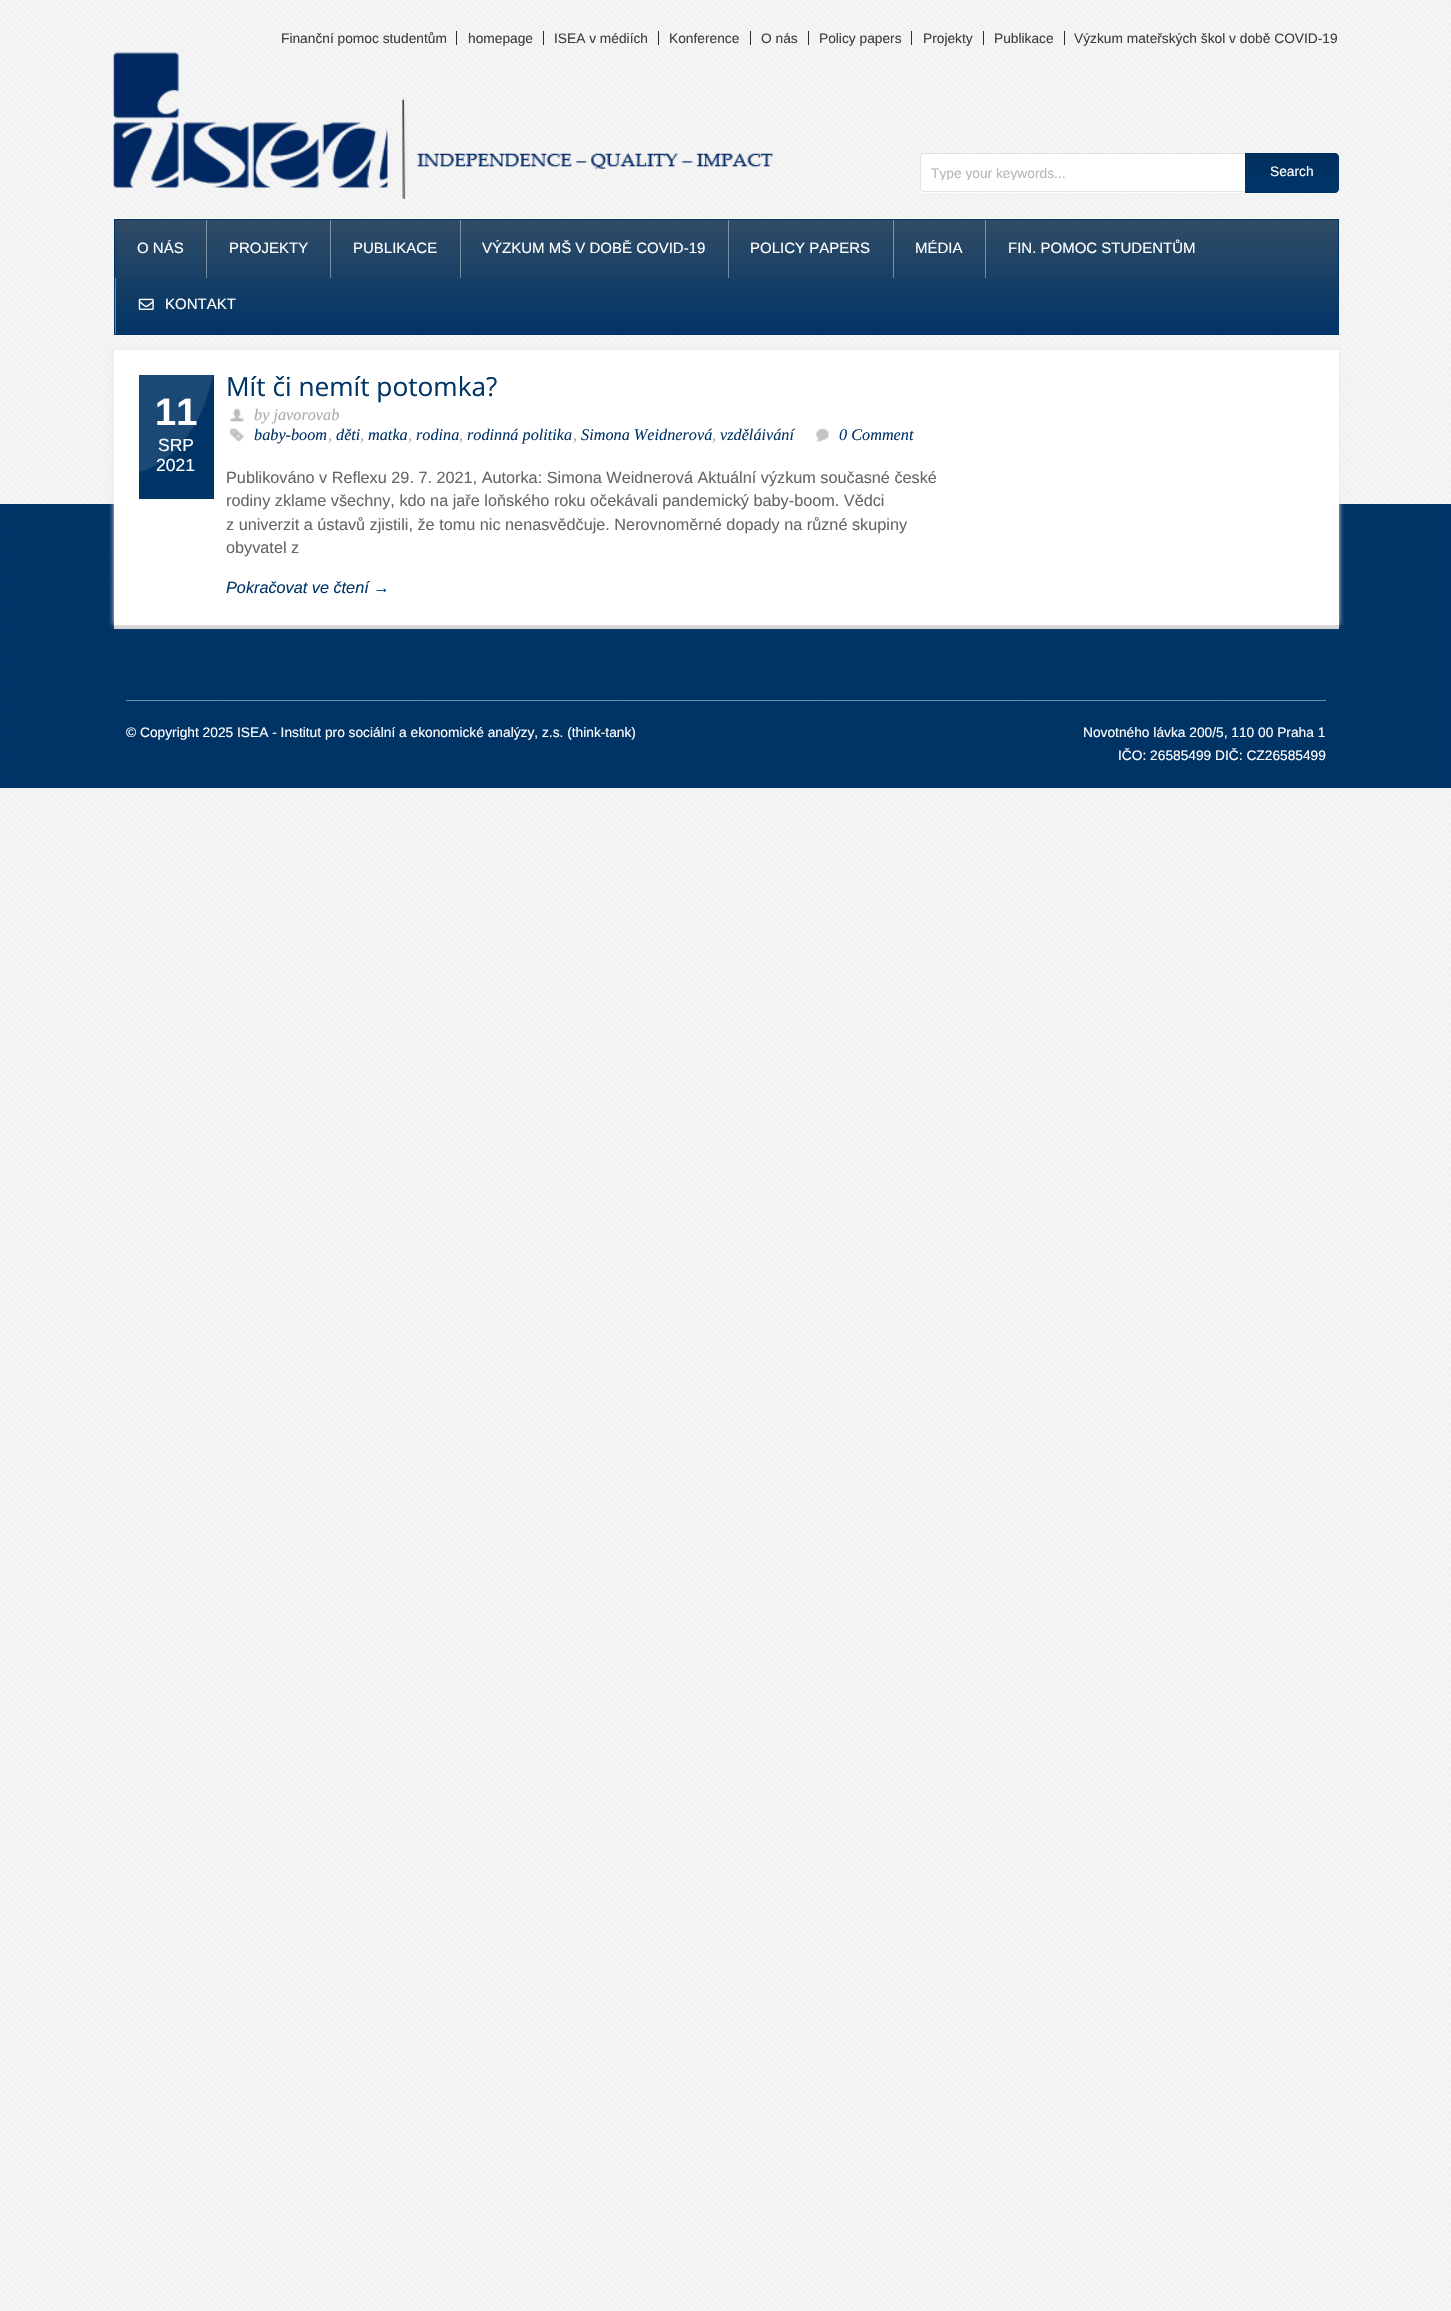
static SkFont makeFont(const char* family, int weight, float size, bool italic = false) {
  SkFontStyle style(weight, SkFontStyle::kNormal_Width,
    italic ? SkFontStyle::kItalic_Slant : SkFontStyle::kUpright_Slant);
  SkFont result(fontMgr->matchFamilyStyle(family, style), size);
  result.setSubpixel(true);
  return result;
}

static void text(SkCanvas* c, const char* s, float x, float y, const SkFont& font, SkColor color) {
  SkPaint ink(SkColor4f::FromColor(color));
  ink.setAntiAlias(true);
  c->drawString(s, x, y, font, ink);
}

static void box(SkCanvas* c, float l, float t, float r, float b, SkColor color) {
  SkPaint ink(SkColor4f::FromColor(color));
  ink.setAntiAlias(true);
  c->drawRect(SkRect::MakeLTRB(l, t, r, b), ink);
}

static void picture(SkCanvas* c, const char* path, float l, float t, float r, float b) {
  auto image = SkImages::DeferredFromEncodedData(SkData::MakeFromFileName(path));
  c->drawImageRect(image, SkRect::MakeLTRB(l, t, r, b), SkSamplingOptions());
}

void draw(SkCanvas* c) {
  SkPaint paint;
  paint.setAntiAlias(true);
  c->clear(0xfff5f5f5);
  picture(c, "img_01.png", 0, 0, 1451, 2311);
  box(c, 456, 31, 457, 45, 0xff2d2b2b);
  SkFont face1 = makeFont("Liberation Sans", 400, 13.75f);
  text(c, "Finanční pomoc studentům", 281, 43, face1, 0xff403d3d);
  box(c, 543, 31, 544, 45, 0xff2d2b2b);
  text(c, "homepage", 468, 43, face1, 0xff403d3d);
  box(c, 658, 31, 659, 45, 0xff2d2b2b);
  text(c, "ISEA v médiích", 554, 43, face1, 0xff403d3d);
  box(c, 750, 31, 751, 45, 0xff2d2b2b);
  text(c, "Konference", 669, 43, face1, 0xff403d3d);
  box(c, 808, 31, 809, 45, 0xff2d2b2b);
  text(c, "O nás", 761, 43, face1, 0xff403d3d);
  box(c, 911, 31, 912, 45, 0xff2d2b2b);
  text(c, "Policy papers", 819, 43, face1, 0xff403d3d);
  box(c, 983, 31, 984, 45, 0xff2d2b2b);
  text(c, "Projekty", 923, 43, face1, 0xff403d3d);
  box(c, 1064, 31, 1065, 45, 0xff2d2b2b);
  text(c, "Publikace", 994, 43, face1, 0xff403d3d);
  text(c, "Výzkum mateřských škol v době COVID-19", 1074, 43, face1, 0xff403d3d);
  picture(c, "img_02.png", 113, 52, 773, 199);
  paint.setColor(0xffffffff);
  c->drawPath(SkPathBuilder().moveTo(924, 153).lineTo(1245, 153).lineTo(1245, 193).lineTo(924, 193).cubicTo(922, 193, 920, 191, 920, 189).lineTo(920, 157).cubicTo(920, 155, 922, 153, 924, 153).close().detach(), paint);
  c->save();
  c->clipRect(SkRect::MakeLTRB(920, 153, 1245, 193));
  paint.setColor(0xffe3e3e3);
  c->drawPath(SkPathBuilder(SkPathFillType::kEvenOdd).moveTo(924, 152).lineTo(1245, 152).lineTo(1245, 192).lineTo(924, 192).cubicTo(922, 192, 920, 191, 920, 189).lineTo(920, 156).cubicTo(920, 154, 922, 152, 924, 152).close().moveTo(924, 154).lineTo(1245, 154).lineTo(1245, 191).lineTo(924, 191).cubicTo(922, 191, 921, 190, 921, 189).lineTo(921, 156).cubicTo(921, 155, 922, 154, 924, 154).close().detach(), paint);
  c->restore();
  c->save();
  c->clipRect(SkRect::MakeLTRB(931, 165, 1235, 180));
  text(c, "Type your keywords...", 931, 178, face1, 0xffb7b7b7);
  c->restore();
  paint.setColor(0xff003466);
  c->drawPath(SkPathBuilder().moveTo(1245, 153).lineTo(1335, 153).cubicTo(1337, 153, 1339, 155, 1339, 157).lineTo(1339, 189).cubicTo(1339, 191, 1337, 193, 1335, 193).lineTo(1245, 193).close().detach(), paint);
  picture(c, "img_03.png", 1245, 153, 1339, 176);
  text(c, "Search", 1270, 176, face1, 0xffffffff);
  box(c, 114, 218, 1339, 219, 0xffffffff);
  {
    const SkColor colors[] = {0xff314c66, 0xff003466};
    const float stops[] = {0, 1};
    const SkPoint ends[] = {{726, 220}, {726, 334}};
    paint.setShader(SkGradientShader::MakeLinear(ends, colors, stops, 2, SkTileMode::kClamp));
    paint.setAlpha(255);
  }
  c->drawRect(SkRect::MakeLTRB(115, 220, 1338, 334), paint);
  paint.setStyle(SkPaint::kStroke_Style);
  paint.setStrokeWidth(1);
  paint.setShader(nullptr);
  paint.setColor(0xff003466);
  c->drawRect(SkRect::MakeLTRB(114.5f, 219.5f, 1338.5f, 334.5f), paint);
  SkFont face2 = makeFont("Liberation Sans", 400, 15);
  text(c, "O NÁS", 137, 253, face2, 0xffffffff);
  box(c, 206, 220, 207, 278, 0x66ffffff);
  text(c, "PROJEKTY", 229, 253, face2, 0xffffffff);
  box(c, 330, 220, 331, 278, 0x66ffffff);
  text(c, "PUBLIKACE", 353, 253, face2, 0xffffffff);
  box(c, 460, 220, 461, 278, 0x66ffffff);
  text(c, "VÝZKUM MŠ V DOBĚ COVID-19", 482, 253, face2, 0xffffffff);
  box(c, 728, 220, 729, 278, 0x66ffffff);
  text(c, "POLICY PAPERS", 750, 253, face2, 0xffffffff);
  box(c, 893, 220, 894, 278, 0x66ffffff);
  text(c, "MÉDIA", 915, 253, face2, 0xffffffff);
  box(c, 985, 220, 986, 278, 0x66ffffff);
  text(c, "FIN. POMOC STUDENTŮM", 1008, 253, face2, 0xffffffff);
  box(c, 115, 278, 116, 334, 0x66ffffff);
  picture(c, "img_04.png", 138, 298, 154, 310);
  text(c, "KONTAKT", 165, 309, face2, 0xffffffff);
  box(c, 0, 504, 1451, 788, 0xff003466);
  picture(c, "img_09.png", 4, 504, 1450, 785);
  box(c, 114, 625, 1339, 629, 0xffd2d2d2);
  paint.setStyle(SkPaint::kFill_Style);
  paint.setColor(0xffe5e5e5);
  paint.setMaskFilter(SkMaskFilter::MakeBlur(kNormal_SkBlurStyle, 2.5f));
  c->drawRect(SkRect::MakeLTRB(114, 350, 1339, 625), paint);
  paint.setMaskFilter(nullptr);
  box(c, 114, 350, 1339, 625, 0xffffffff);
  box(c, 139, 375, 214, 499, 0xff003466);
  picture(c, "img_05.png", 139, 375, 213, 473);
  SkFont face3 = makeFont("Liberation Sans", 700, 38);
  text(c, "11", 155, 425, face3, 0xffffffff);
  SkFont face4 = makeFont("Liberation Sans", 400, 17.5f);
  text(c, "SRP", 158, 451, face4, 0xffffffff);
  text(c, "2021", 156, 471, face4, 0xffffffff);
  SkFont face5 = makeFont("Open Sans", 400, 26.25f);
  text(c, "Mít či nemít potomka?", 226, 396, face5, 0xff003466);
  picture(c, "img_06.png", 230, 408, 244, 422);
  SkFont face6 = makeFont("Liberation Serif", 400, 16.25f, true);
  text(c, "by javorovab", 254, 420, face6, 0xffaaaaaa);
  picture(c, "img_07.png", 230, 428, 244, 442);
  text(c, "baby-boom", 254, 440, face6, 0xff003466);
  text(c, ",", 328, 440, face6, 0xffaaaaaa);
  text(c, "děti", 336, 440, face6, 0xff003466);
  text(c, ",", 360, 440, face6, 0xffaaaaaa);
  text(c, "matka", 368, 440, face6, 0xff003466);
  text(c, ",", 408, 440, face6, 0xffaaaaaa);
  text(c, "rodina", 416, 440, face6, 0xff003466);
  text(c, ",", 459, 440, face6, 0xffaaaaaa);
  text(c, "rodinná politika", 467, 440, face6, 0xff003466);
  text(c, ",", 573, 440, face6, 0xffaaaaaa);
  text(c, "Simona Weidnerová", 581, 440, face6, 0xff003466);
  text(c, ",", 712, 440, face6, 0xffaaaaaa);
  text(c, "vzděláivání", 720, 440, face6, 0xff003466);
  picture(c, "img_08.png", 816, 428, 829, 442);
  text(c, "0 Comment", 839, 440, face6, 0xff003466);
  SkFont face7 = makeFont("Liberation Sans", 400, 16.25f);
  text(c, "Publikováno v Reflexu 29. 7. 2021, Autorka: Simona Weidnerová Aktuální výzkum současné české", 226, 483, face7, 0xff666666);
  text(c, "rodiny zklame všechny, kdo na jaře loňského roku očekávali pandemický baby-boom. Vědci", 226, 506, face7, 0xff666666);
  text(c, "z univerzit a ústavů zjistili, že tomu nic nenasvědčuje. Nerovnoměrné dopady na různé skupiny", 226, 530, face7, 0xff666666);
  text(c, "obyvatel z", 226, 553, face7, 0xff666666);
  SkFont face8 = makeFont("Liberation Sans", 400, 16.25f, true);
  text(c, "Pokračovat ve čtení →", 226, 593, face8, 0xff003466);
  box(c, 126, 700, 1326, 701, 0xff5f92ab);
  text(c, "© Copyright 2025 ISEA - Institut pro sociální a ekonomické analýzy, z.s. (think-tank)", 126, 737, face1, 0xffffffff);
  text(c, "Novotného lávka 200/5, 110 00 Praha 1", 1083, 737, face1, 0xffffffff);
  text(c, "IČO: 26585499 DIČ: CZ26585499", 1118, 760, face1, 0xffffffff);
}
